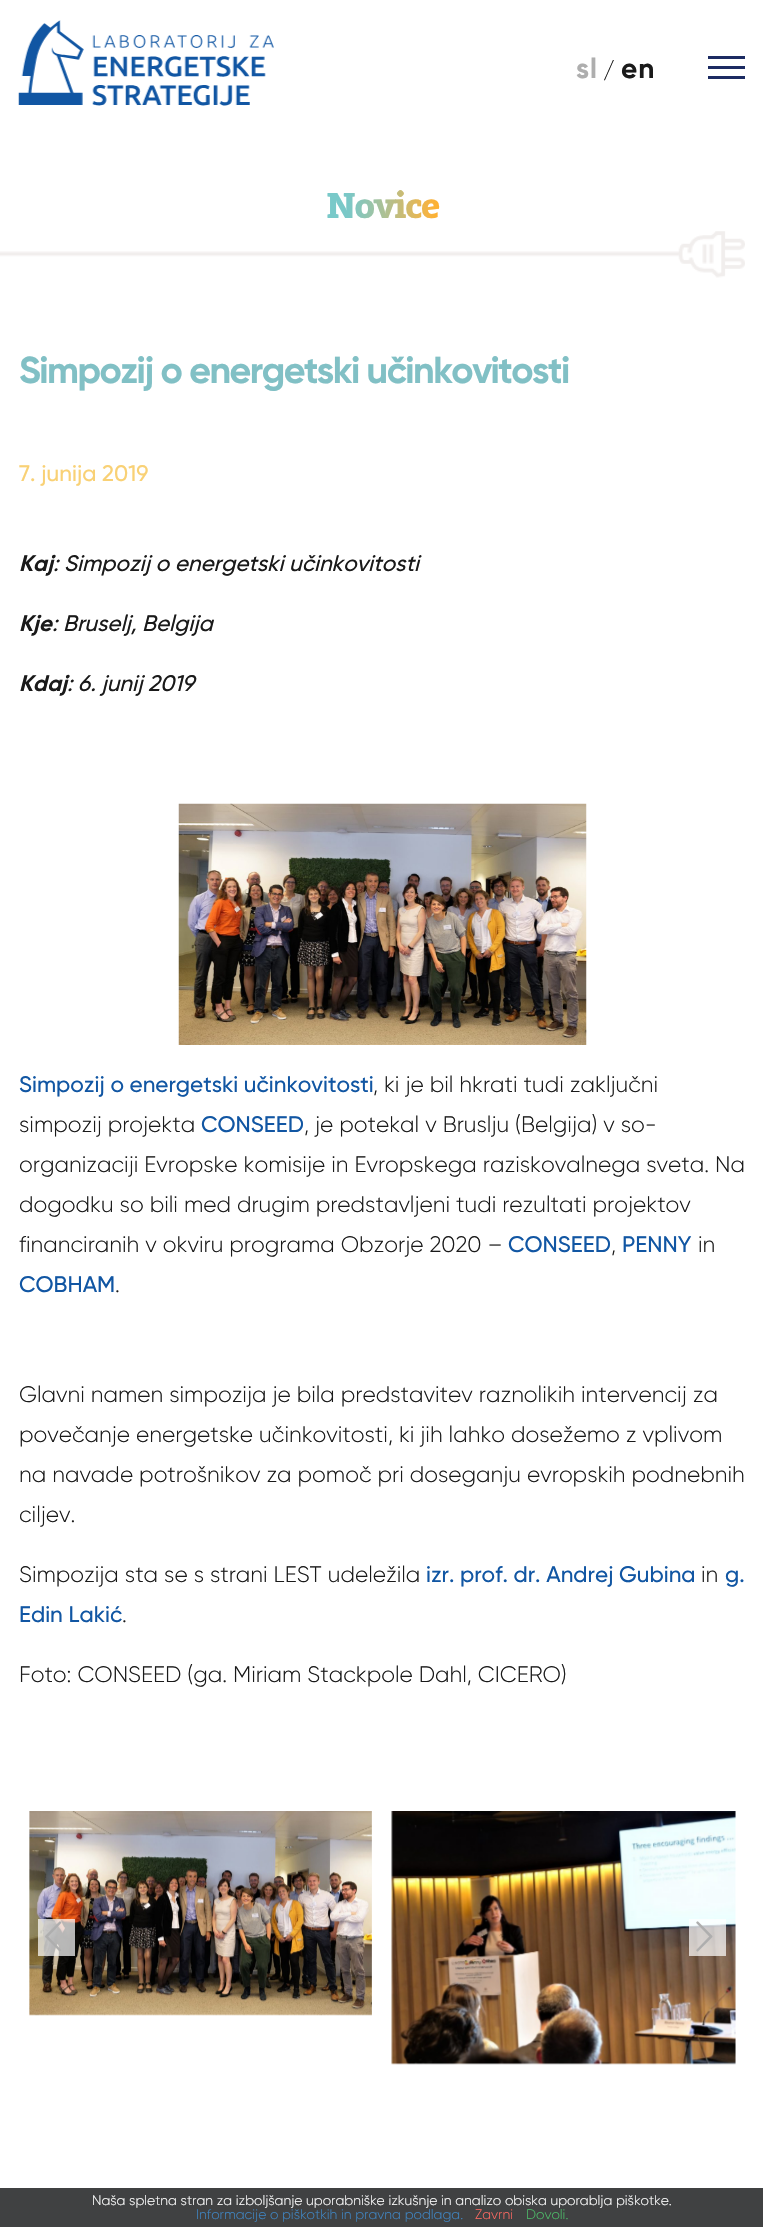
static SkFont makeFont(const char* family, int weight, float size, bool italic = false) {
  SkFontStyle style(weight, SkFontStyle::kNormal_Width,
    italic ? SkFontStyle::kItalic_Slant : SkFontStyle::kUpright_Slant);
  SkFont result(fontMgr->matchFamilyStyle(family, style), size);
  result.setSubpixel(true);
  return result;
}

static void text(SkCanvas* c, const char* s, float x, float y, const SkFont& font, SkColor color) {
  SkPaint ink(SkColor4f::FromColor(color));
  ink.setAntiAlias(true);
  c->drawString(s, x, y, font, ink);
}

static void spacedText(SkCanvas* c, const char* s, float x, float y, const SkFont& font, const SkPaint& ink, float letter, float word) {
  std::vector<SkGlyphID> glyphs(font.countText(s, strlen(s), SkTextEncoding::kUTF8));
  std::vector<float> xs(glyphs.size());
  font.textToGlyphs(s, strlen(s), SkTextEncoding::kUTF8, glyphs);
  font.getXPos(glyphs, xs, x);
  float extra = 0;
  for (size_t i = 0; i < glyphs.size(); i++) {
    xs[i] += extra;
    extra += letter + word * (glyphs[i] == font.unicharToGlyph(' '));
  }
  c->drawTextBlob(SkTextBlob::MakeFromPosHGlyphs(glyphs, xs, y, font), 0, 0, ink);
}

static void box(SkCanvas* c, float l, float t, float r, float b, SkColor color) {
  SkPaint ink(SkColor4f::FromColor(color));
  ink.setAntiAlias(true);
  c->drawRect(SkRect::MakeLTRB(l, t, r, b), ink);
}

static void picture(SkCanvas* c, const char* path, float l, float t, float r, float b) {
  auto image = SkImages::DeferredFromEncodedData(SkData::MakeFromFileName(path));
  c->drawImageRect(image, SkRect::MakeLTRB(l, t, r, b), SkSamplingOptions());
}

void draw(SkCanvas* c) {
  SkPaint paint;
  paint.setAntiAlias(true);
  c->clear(0xffffffff);
  picture(c, "img_01.png", 18, 20, 274, 106);
  SkFont face1 = makeFont("Gilroy", 700, 28);
  paint.setColor(0xffaeaeae);
  spacedText(c, "sl", 576, 78, face1, paint, 1, 0);
  SkFont face2 = makeFont("Gilroy", 300, 22.5f);
  text(c, "/", 603, 78, face2, 0xff1a1a1a);
  paint.setColor(0xff1a1a1a);
  spacedText(c, "en", 621, 78, face1, paint, 1, 0);
  box(c, 708, 66, 745, 69, 0xff1c2b62);
  box(c, 708, 56, 745, 59, 0xff1c2b62);
  box(c, 708, 76, 745, 79, 0xff1c2b62);
  SkFont face3 = makeFont("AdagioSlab", 700, 37.5f);
  {
    const SkColor colors[] = {0xff79c9c9, 0xff79c9c9, 0xff7bc8c7, 0xff88c6ba, 0xff98c4aa, 0xffa9c198, 0xffbbbe85, 0xffcdbb71, 0xffe0b85b, 0xfff3b445, 0xffffb02f};
    const float stops[] = {0, 0.1f, 0.2f, 0.3f, 0.4f, 0.5f, 0.6f, 0.7f, 0.8f, 0.9f, 1};
    const SkPoint ends[] = {{326, 206}, {438, 206}};
    paint.setShader(SkGradientShader::MakeLinear(ends, colors, stops, 11, SkTileMode::kClamp));
    paint.setAlpha(255);
  }
  spacedText(c, "Novice", 326, 218, face3, paint, -1.5f, 0);
  picture(c, "img_02.png", 0, 231, 745, 278);
  SkFont face4 = makeFont("Gilroy", 700, 37.5f);
  paint.setShader(nullptr);
  paint.setColor(0xff81c0c5);
  spacedText(c, "Simpozij o energetski učinkovitosti", 19, 383, face4, paint, -1.5f, 0);
  SkFont face5 = makeFont("Gilroy", 500, 22.5f);
  text(c, "7. junija 2019", 19, 481, face5, 0xfff9d175);
  SkFont face6 = makeFont("Gilroy", 700, 22.5f, true);
  text(c, "Kaj", 19, 571, face6, 0xff1a1a1a);
  SkFont face7 = makeFont("Gilroy", 500, 22.5f, true);
  text(c, ": Simpozij o energetski učinkovitosti", 53, 571, face7, 0xff1a1a1a);
  text(c, "Kje", 19, 631, face6, 0xff1a1a1a);
  text(c, ": Bruselj, Belgija", 52, 631, face7, 0xff1a1a1a);
  text(c, "Kdaj", 19, 691, face6, 0xff1a1a1a);
  text(c, ": 6. junij 2019", 67, 691, face7, 0xff1a1a1a);
  picture(c, "img_03.png", 178, 803, 587, 1045);
  text(c, "Simpozij o energetski učinkovitosti", 19, 1092, face5, 0xff1156a3);
  text(c, ", ki je bil hkrati tudi zaključni", 373, 1092, face2, 0xff1a1a1a);
  text(c, "simpozij projekta", 19, 1132, face2, 0xff1a1a1a);
  text(c, "CONSEED", 201, 1132, face5, 0xff1156a3);
  text(c, ", je potekal v Bruslju (Belgija) v so-", 304, 1132, face2, 0xff1a1a1a);
  text(c, "organizaciji Evropske komisije in Evropskega raziskovalnega sveta. Na", 19, 1172, face2, 0xff1a1a1a);
  text(c, "dogodku so bili med drugim predstavljeni tudi rezultati projektov", 19, 1212, face2, 0xff1a1a1a);
  text(c, "financiranih v okviru programa Obzorje 2020 –", 19, 1252, face2, 0xff1a1a1a);
  text(c, "CONSEED", 508, 1252, face5, 0xff1156a3);
  text(c, "PENNY", 622, 1252, face5, 0xff1156a3);
  text(c, "in", 698, 1252, face2, 0xff1a1a1a);
  text(c, ",", 611, 1252, face2, 0xff1a1a1a);
  text(c, "COBHAM", 19, 1292, face5, 0xff1156a3);
  text(c, ".", 115, 1292, face2, 0xff1a1a1a);
  text(c, "Glavni namen simpozija je bila predstavitev raznolikih intervencij za", 19, 1402, face2, 0xff1a1a1a);
  text(c, "povečanje energetske učinkovitosti, ki jih lahko dosežemo z vplivom", 19, 1442, face2, 0xff1a1a1a);
  text(c, "na navade potrošnikov za pomoč pri doseganju evropskih podnebnih", 19, 1482, face2, 0xff1a1a1a);
  text(c, "ciljev.", 19, 1522, face2, 0xff1a1a1a);
  text(c, "Simpozija sta se s strani LEST udeležila", 19, 1582, face2, 0xff1a1a1a);
  text(c, "izr. prof. dr. Andrej Gubina", 426, 1582, face5, 0xff1156a3);
  text(c, "in", 701, 1582, face2, 0xff1a1a1a);
  text(c, "g.", 725, 1582, face5, 0xff1156a3);
  text(c, "Edin Lakić", 19, 1622, face5, 0xff1156a3);
  text(c, ".", 122, 1622, face2, 0xff1a1a1a);
  text(c, "Foto: CONSEED (ga. Miriam Stackpole Dahl, CICERO)", 19, 1682, face2, 0xff1a1a1a);
  picture(c, "img_04.png", 29, 1811, 372, 2016);
  picture(c, "img_05.png", 391, 1811, 736, 2065);
  box(c, 38, 1919, 75, 1956, 0xb3ffffff);
  picture(c, "img_06.png", 45, 1921, 62, 1951);
  box(c, 689, 1919, 726, 1956, 0xb3ffffff);
  picture(c, "img_07.png", 696, 1921, 713, 1952);
  box(c, 0, 2188, 763, 2227, 0xff404142);
  SkFont face8 = makeFont("Gilroy", 300, 13.75f);
  text(c, "Naša spletna stran za izboljšanje uporabniške izkušnje in analizo obiska uporablja piškotke.", 92, 2205, face8, 0xffffffff);
  text(c, "Informacije o piškotkih in pravna podlaga.", 196, 2219, face8, 0xff3f85c2);
  text(c, "Zavrni", 475, 2219, face8, 0xffff6961);
  text(c, "Dovoli.", 526, 2219, face8, 0xff4dbc69);
}
